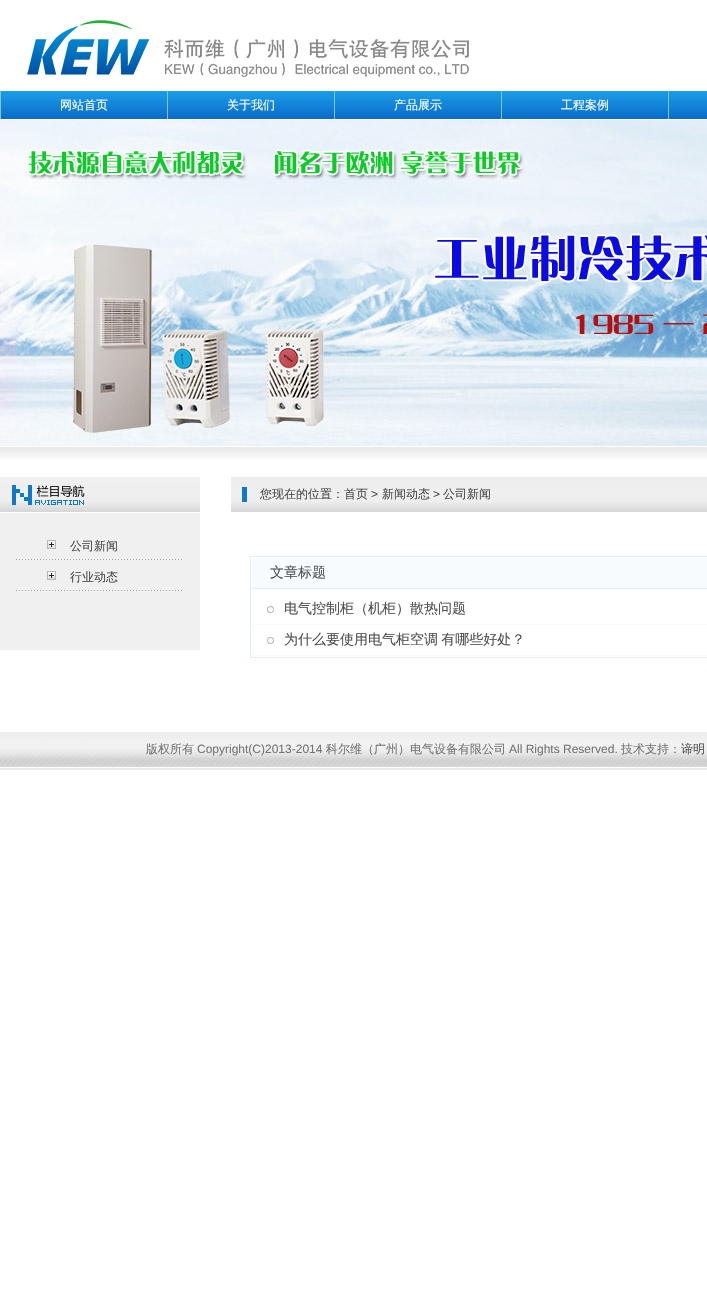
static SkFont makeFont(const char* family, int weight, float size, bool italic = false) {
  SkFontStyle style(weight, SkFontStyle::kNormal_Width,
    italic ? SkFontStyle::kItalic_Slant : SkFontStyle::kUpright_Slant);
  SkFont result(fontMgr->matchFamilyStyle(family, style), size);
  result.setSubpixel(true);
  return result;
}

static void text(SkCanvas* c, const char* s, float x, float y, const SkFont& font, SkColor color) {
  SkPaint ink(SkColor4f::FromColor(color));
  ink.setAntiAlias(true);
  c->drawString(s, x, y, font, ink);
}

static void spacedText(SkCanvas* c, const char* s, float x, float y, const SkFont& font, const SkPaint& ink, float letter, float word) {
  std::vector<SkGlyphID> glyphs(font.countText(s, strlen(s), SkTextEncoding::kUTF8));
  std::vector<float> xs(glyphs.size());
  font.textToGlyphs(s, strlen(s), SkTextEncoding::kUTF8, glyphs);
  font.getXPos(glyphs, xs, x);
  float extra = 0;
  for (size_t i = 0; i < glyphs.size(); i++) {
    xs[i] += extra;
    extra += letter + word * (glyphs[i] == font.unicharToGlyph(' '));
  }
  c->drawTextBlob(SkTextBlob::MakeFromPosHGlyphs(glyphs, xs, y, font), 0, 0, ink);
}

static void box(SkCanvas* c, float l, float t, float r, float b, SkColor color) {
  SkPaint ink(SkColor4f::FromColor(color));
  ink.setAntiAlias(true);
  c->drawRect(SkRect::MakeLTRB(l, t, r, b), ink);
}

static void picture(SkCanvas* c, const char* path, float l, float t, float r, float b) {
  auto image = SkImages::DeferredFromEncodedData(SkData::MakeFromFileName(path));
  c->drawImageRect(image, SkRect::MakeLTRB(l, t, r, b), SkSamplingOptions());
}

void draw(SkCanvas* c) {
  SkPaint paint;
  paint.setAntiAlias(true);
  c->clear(0xffffffff);
  picture(c, "img_01.png", 27, 20, 469, 77);
  picture(c, "img_02.png", 1, 91, 167, 119);
  box(c, 0, 91, 1, 119, 0xff79cae5);
  SkFont face1 = makeFont("WenQuanYi Zen Hei", 500, 12);
  text(c, "网站首页", 60, 109, face1, 0xffffffff);
  picture(c, "img_02.png", 168, 91, 334, 119);
  box(c, 167, 91, 168, 119, 0xff79cae5);
  text(c, "关于我们", 227, 109, face1, 0xffffffff);
  picture(c, "img_02.png", 335, 91, 501, 119);
  box(c, 334, 91, 335, 119, 0xff79cae5);
  text(c, "产品展示", 394, 109, face1, 0xffffffff);
  picture(c, "img_02.png", 502, 91, 668, 119);
  box(c, 501, 91, 502, 119, 0xff79cae5);
  text(c, "工程案例", 561, 109, face1, 0xffffffff);
  picture(c, "img_03.png", 669, 91, 707, 119);
  box(c, 668, 91, 669, 119, 0xff79cae5);
  picture(c, "img_04.png", 0, 120, 707, 446);
  picture(c, "img_05.png", 0, 447, 707, 459);
  picture(c, "img_06.png", 231, 477, 707, 512);
  text(c, "您现在的位置：首页", 260, 498, face1, 0xff494949);
  SkFont face2 = makeFont("Liberation Sans", 400, 12);
  text(c, ">", 371, 498, face2, 0xff494949);
  text(c, "新闻动态", 382, 498, face1, 0xff494949);
  text(c, ">", 433, 498, face2, 0xff494949);
  text(c, "公司新闻", 443, 498, face1, 0xff494949);
  box(c, 0, 477, 200, 650, 0xfff0f0f0);
  picture(c, "img_07.png", 0, 485, 200, 513);
  picture(c, "img_08.png", 16, 540, 182, 560);
  text(c, "公司新闻", 70, 550, face1, 0xff494949);
  picture(c, "img_08.png", 16, 571, 182, 591);
  text(c, "行业动态", 70, 581, face1, 0xff494949);
  paint.setStyle(SkPaint::kStroke_Style);
  paint.setStrokeWidth(1);
  paint.setColor(0xffddeeff);
  c->drawRect(SkRect::MakeLTRB(250.5f, 556.5f, 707.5f, 657.5f), paint);
  box(c, 252, 558, 707, 588, 0xfff7fbfe);
  box(c, 252, 588, 707, 589, 0xffddeeff);
  SkFont face3 = makeFont("WenQuanYi Zen Hei", 500, 14);
  text(c, "文章标题", 270, 577, face3, 0xff505050);
  picture(c, "img_09.png", 267, 606, 274, 613);
  box(c, 252, 624, 707, 625, 0xfff7fbfe);
  text(c, "电气控制柜（机柜）散热问题", 284, 613, face3, 0xff505050);
  picture(c, "img_09.png", 267, 637, 274, 644);
  box(c, 252, 655, 707, 656, 0xfff7fbfe);
  paint.setStyle(SkPaint::kFill_Style);
  paint.setColor(0xff505050);
  spacedText(c, "为什么要使用电气柜空调 有哪些好处？", 284, 644, face3, paint, 0, -1);
  picture(c, "img_10.png", 0, 732, 707, 770);
  text(c, "版权所有", 146, 753, face1, 0xff747474);
  text(c, "Copyright(C)2013-2014", 197, 753, face2, 0xff747474);
  text(c, "科尔维（广州）电气设备有限公司", 326, 753, face1, 0xff747474);
  text(c, "All Rights Reserved.", 509, 753, face2, 0xff747474);
  text(c, "技术支持：", 621, 753, face1, 0xff747474);
  text(c, "谛明", 681, 753, face1, 0xff505050);
}
